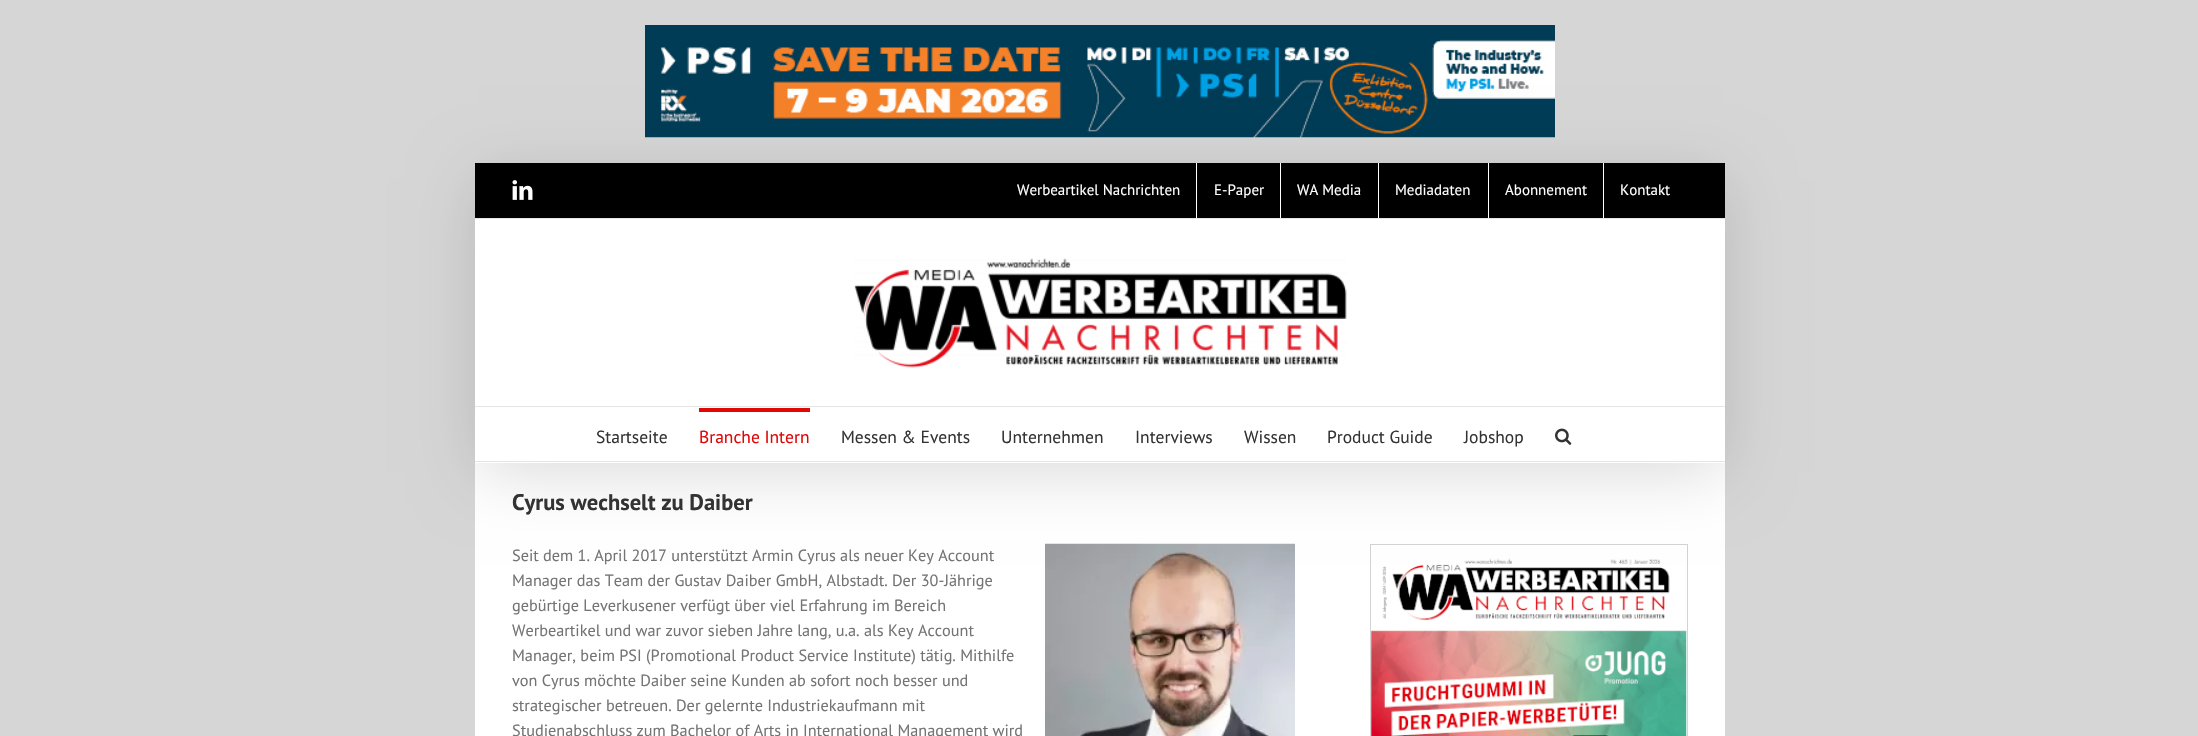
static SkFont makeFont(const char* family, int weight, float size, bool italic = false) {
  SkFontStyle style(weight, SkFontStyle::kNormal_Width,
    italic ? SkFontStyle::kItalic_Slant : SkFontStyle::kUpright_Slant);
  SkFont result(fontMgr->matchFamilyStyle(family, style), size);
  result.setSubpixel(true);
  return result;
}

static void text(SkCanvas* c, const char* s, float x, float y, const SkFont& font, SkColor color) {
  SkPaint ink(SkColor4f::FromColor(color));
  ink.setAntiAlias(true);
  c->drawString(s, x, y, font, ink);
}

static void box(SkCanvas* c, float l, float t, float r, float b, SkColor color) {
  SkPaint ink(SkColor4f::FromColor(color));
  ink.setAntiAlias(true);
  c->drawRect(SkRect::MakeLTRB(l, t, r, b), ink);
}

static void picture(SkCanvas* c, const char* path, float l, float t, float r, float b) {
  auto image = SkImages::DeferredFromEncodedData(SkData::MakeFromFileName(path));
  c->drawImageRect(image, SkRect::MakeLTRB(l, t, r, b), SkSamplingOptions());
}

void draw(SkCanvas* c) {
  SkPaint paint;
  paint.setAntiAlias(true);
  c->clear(0xffd7d6d6);
  picture(c, "img_01.png", 645, 25, 1555, 138);
  box(c, 475, 463, 1725, 736, 0xffffffff);
  picture(c, "img_05.png", 1045, 543, 1295, 736);
  paint.setStyle(SkPaint::kStroke_Style);
  paint.setStrokeWidth(1);
  paint.setColor(0xffd3d3d3);
  c->drawRect(SkRect::MakeLTRB(1370.5f, 544.5f, 1687.5f, 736.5f), paint);
  picture(c, "img_06.png", 1371, 558, 1687, 736);
  paint.setStyle(SkPaint::kFill_Style);
  paint.setColor(0x24000000);
  paint.setMaskFilter(SkMaskFilter::MakeBlur(kNormal_SkBlurStyle, 31));
  c->drawRect(SkRect::MakeLTRB(478, 178, 1723, 473), paint);
  paint.setMaskFilter(nullptr);
  box(c, 475, 163, 1725, 218, 0xff000000);
  box(c, 475, 218, 1725, 219, 0xffe5e5e5);
  picture(c, "img_02.png", 512, 180, 533, 200);
  SkFont face1 = makeFont("PT Sans", 400, 15);
  text(c, "Werbeartikel Nachrichten", 1017, 195, face1, 0xffffffff);
  box(c, 1196, 163, 1197, 218, 0xffffffff);
  text(c, "E-Paper", 1214, 195, face1, 0xffffffff);
  box(c, 1280, 163, 1281, 218, 0xffffffff);
  text(c, "WA Media", 1297, 195, face1, 0xffffffff);
  box(c, 1378, 163, 1379, 218, 0xffffffff);
  text(c, "Mediadaten", 1395, 195, face1, 0xffffffff);
  box(c, 1488, 163, 1489, 218, 0xffffffff);
  text(c, "Abonnement", 1505, 195, face1, 0xffffffff);
  box(c, 1603, 163, 1604, 218, 0xffffffff);
  text(c, "Kontakt", 1620, 195, face1, 0xffffffff);
  box(c, 475, 219, 1725, 463, 0xffffffff);
  box(c, 475, 406, 1725, 407, 0xffe5e5e5);
  picture(c, "img_03.png", 854, 258, 1347, 368);
  box(c, 475, 461, 1725, 462, 0xffe5e5e5);
  SkFont face2 = makeFont("PT Sans", 400, 17.5f);
  text(c, "Startseite", 596, 443, face2, 0xff333333);
  box(c, 699, 408, 810, 412, 0xffe10707);
  text(c, "Branche Intern", 699, 443, face2, 0xffe10707);
  text(c, "Messen & Events", 841, 443, face2, 0xff333333);
  text(c, "Unternehmen", 1001, 443, face2, 0xff333333);
  text(c, "Interviews", 1135, 443, face2, 0xff333333);
  text(c, "Wissen", 1244, 443, face2, 0xff333333);
  text(c, "Product Guide", 1327, 443, face2, 0xff333333);
  text(c, "Jobshop", 1464, 443, face2, 0xff333333);
  picture(c, "img_04.png", 1555, 428, 1572, 445);
  SkFont face3 = makeFont("PT Sans", 700, 22.5f);
  text(c, "Cyrus wechselt zu Daiber", 512, 510, face3, 0xff333333);
  SkFont face4 = makeFont("PT Sans", 400, 16.25f);
  text(c, "Seit dem 1. April 2017 unterstützt Armin Cyrus als neuer Key Account", 512, 561, face4, 0xff747474);
  text(c, "Manager das Team der Gustav Daiber GmbH, Albstadt. Der 30-Jährige", 512, 586, face4, 0xff747474);
  text(c, "gebürtige Leverkusener verfügt über viel Erfahrung im Bereich", 512, 611, face4, 0xff747474);
  text(c, "Werbeartikel und war zuvor sieben Jahre lang, u.a. als Key Account", 512, 636, face4, 0xff747474);
  text(c, "Manager, beim PSI (Promotional Product Service Institute) tätig. Mithilfe", 512, 661, face4, 0xff747474);
  text(c, "von Cyrus möchte Daiber seine Kunden ab sofort noch besser und", 512, 686, face4, 0xff747474);
  text(c, "strategischer betreuen. Der gelernte Industriekaufmann mit", 512, 711, face4, 0xff747474);
  text(c, "Studienabschluss zum Bachelor of Arts in International Management wird", 512, 736, face4, 0xff747474);
}
